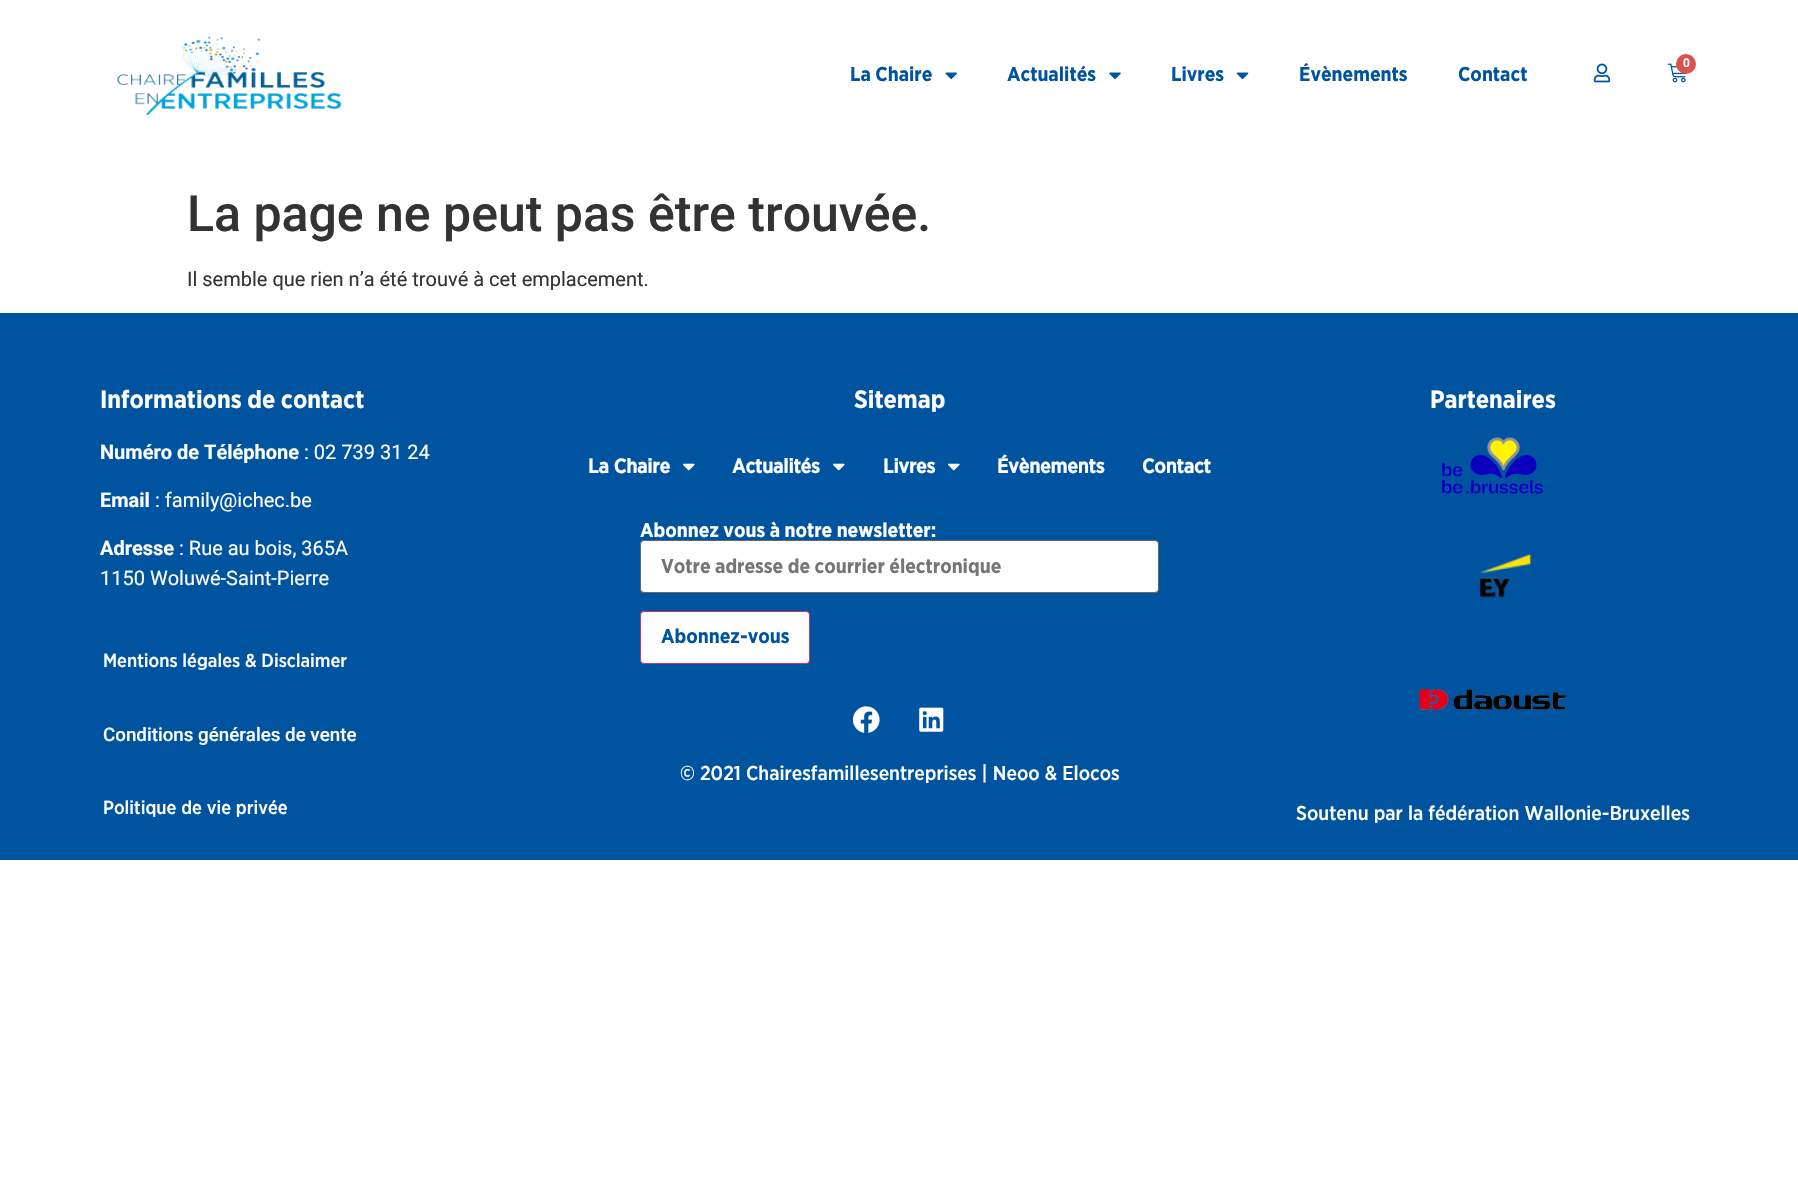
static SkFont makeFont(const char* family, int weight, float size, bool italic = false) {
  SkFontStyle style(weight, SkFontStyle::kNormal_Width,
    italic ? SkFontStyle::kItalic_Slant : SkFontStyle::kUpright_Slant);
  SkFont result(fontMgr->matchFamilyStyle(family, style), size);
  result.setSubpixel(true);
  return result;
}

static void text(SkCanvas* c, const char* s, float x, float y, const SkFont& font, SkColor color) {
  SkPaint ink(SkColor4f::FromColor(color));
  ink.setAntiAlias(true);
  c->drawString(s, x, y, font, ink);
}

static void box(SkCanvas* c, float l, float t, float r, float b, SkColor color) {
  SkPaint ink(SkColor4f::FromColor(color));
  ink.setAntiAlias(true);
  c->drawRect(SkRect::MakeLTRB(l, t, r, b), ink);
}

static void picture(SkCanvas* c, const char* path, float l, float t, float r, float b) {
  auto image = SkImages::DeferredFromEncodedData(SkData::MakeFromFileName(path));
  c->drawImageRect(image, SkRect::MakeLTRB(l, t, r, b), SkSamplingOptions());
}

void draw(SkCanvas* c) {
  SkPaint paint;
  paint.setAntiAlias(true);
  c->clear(0xffffffff);
  picture(c, "img_01.png", 117, 36, 342, 116);
  SkFont face1 = makeFont("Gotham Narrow", 700, 20);
  text(c, "La Chaire", 850, 81, face1, 0xff00549f);
  picture(c, "img_02.png", 945, 72, 957, 80);
  text(c, "Actualités", 1007, 81, face1, 0xff00549f);
  picture(c, "img_03.png", 1109, 72, 1121, 79);
  text(c, "Livres", 1171, 81, face1, 0xff00549f);
  picture(c, "img_04.png", 1236, 72, 1249, 80);
  text(c, "Évènements", 1299, 81, face1, 0xff00549f);
  text(c, "Contact", 1458, 81, face1, 0xff00549f);
  picture(c, "img_05.png", 1593, 63, 1611, 83);
  picture(c, "img_06.png", 1667, 63, 1687, 83);
  paint.setColor(0xffd9534f);
  c->drawCircle(1686, 64, 10, paint);
  SkFont face2 = makeFont("Roboto", 600, 12);
  text(c, "0", 1683, 67, face2, 0xffffffff);
  SkFont face3 = makeFont("Roboto", 500, 50);
  text(c, "La page ne peut pas être trouvée.", 187, 231, face3, 0xff333333);
  SkFont face4 = makeFont("Roboto", 400, 20);
  text(c, "Il semble que rien n’a été trouvé à cet emplacement.", 187, 286, face4, 0xff333333);
  box(c, 0, 313, 1798, 860, 0xff00549f);
  SkFont face5 = makeFont("Gotham Narrow", 700, 25);
  text(c, "Informations de contact", 100, 408, face5, 0xffffffff);
  SkFont face6 = makeFont("Roboto", 700, 20);
  text(c, "Numéro de Téléphone", 100, 459, face6, 0xffffffff);
  text(c, ": 02 739 31 24", 304, 459, face4, 0xffffffff);
  text(c, "Email", 100, 507, face6, 0xffffffff);
  text(c, ": family@ichec.be", 155, 507, face4, 0xffffffff);
  text(c, "Adresse", 100, 555, face6, 0xffffffff);
  text(c, ": Rue au bois, 365A", 179, 555, face4, 0xffffffff);
  text(c, "1150 Woluwé-Saint-Pierre", 100, 585, face4, 0xffffffff);
  SkFont face7 = makeFont("Gotham Narrow", 500, 18.75f);
  text(c, "Mentions légales & Disclaimer", 103, 667, face7, 0xffffffff);
  SkFont face8 = makeFont("Roboto", 500, 18.75f);
  text(c, "Conditions générales de vente", 103, 741, face8, 0xffffffff);
  text(c, "Politique de vie privée", 103, 814, face7, 0xffffffff);
  text(c, "Sitemap", 854, 408, face5, 0xffffffff);
  SkFont face9 = makeFont("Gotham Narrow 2", 700, 20);
  text(c, "La Chaire", 588, 473, face9, 0xffffffff);
  picture(c, "img_07.png", 683, 463, 695, 471);
  text(c, "Actualités", 732, 473, face9, 0xffffffff);
  picture(c, "img_07.png", 833, 463, 845, 471);
  text(c, "Livres", 883, 473, face9, 0xffffffff);
  picture(c, "img_07.png", 948, 463, 960, 471);
  text(c, "Évènements", 997, 473, face9, 0xffffffff);
  text(c, "Contact", 1142, 473, face9, 0xffffffff);
  text(c, "Abonnez vous à notre newsletter:", 640, 537, face1, 0xffffffff);
  paint.setColor(0xffffffff);
  c->drawRoundRect(SkRect::MakeLTRB(640.5f, 540.5f, 1158.5f, 592.5f), 3.5f, 3.5f, paint);
  paint.setStyle(SkPaint::kStroke_Style);
  paint.setStrokeWidth(1);
  paint.setColor(0xff666666);
  c->drawRoundRect(SkRect::MakeLTRB(640.5f, 540.5f, 1158.5f, 592.5f), 3.5f, 3.5f, paint);
  text(c, "Votre adresse de courrier électronique", 661, 573, face1, 0xff757575);
  paint.setStyle(SkPaint::kFill_Style);
  paint.setColor(0xffffffff);
  c->drawRoundRect(SkRect::MakeLTRB(640.5f, 611.5f, 809.5f, 663.5f), 3.5f, 3.5f, paint);
  paint.setStyle(SkPaint::kStroke_Style);
  paint.setColor(0xffcc3366);
  c->drawRoundRect(SkRect::MakeLTRB(640.5f, 611.5f, 809.5f, 663.5f), 3.5f, 3.5f, paint);
  text(c, "Abonnez-vous", 661, 643, face1, 0xff00549f);
  picture(c, "img_08.png", 852, 706, 880, 733);
  picture(c, "img_09.png", 919, 707, 944, 732);
  SkFont face10 = makeFont("Gotham Narrow", 500, 20);
  text(c, "© 2021 Chairesfamillesentreprises | Neoo & Elocos", 680, 780, face10, 0xffffffff);
  text(c, "Partenaires", 1430, 408, face5, 0xffffffff);
  picture(c, "img_10.png", 1442, 437, 1543, 494);
  picture(c, "img_11.png", 1479, 553, 1532, 598);
  picture(c, "img_12.png", 1419, 689, 1566, 710);
  text(c, "Soutenu par la fédération Wallonie-Bruxelles", 1296, 820, face10, 0xffffffff);
}
